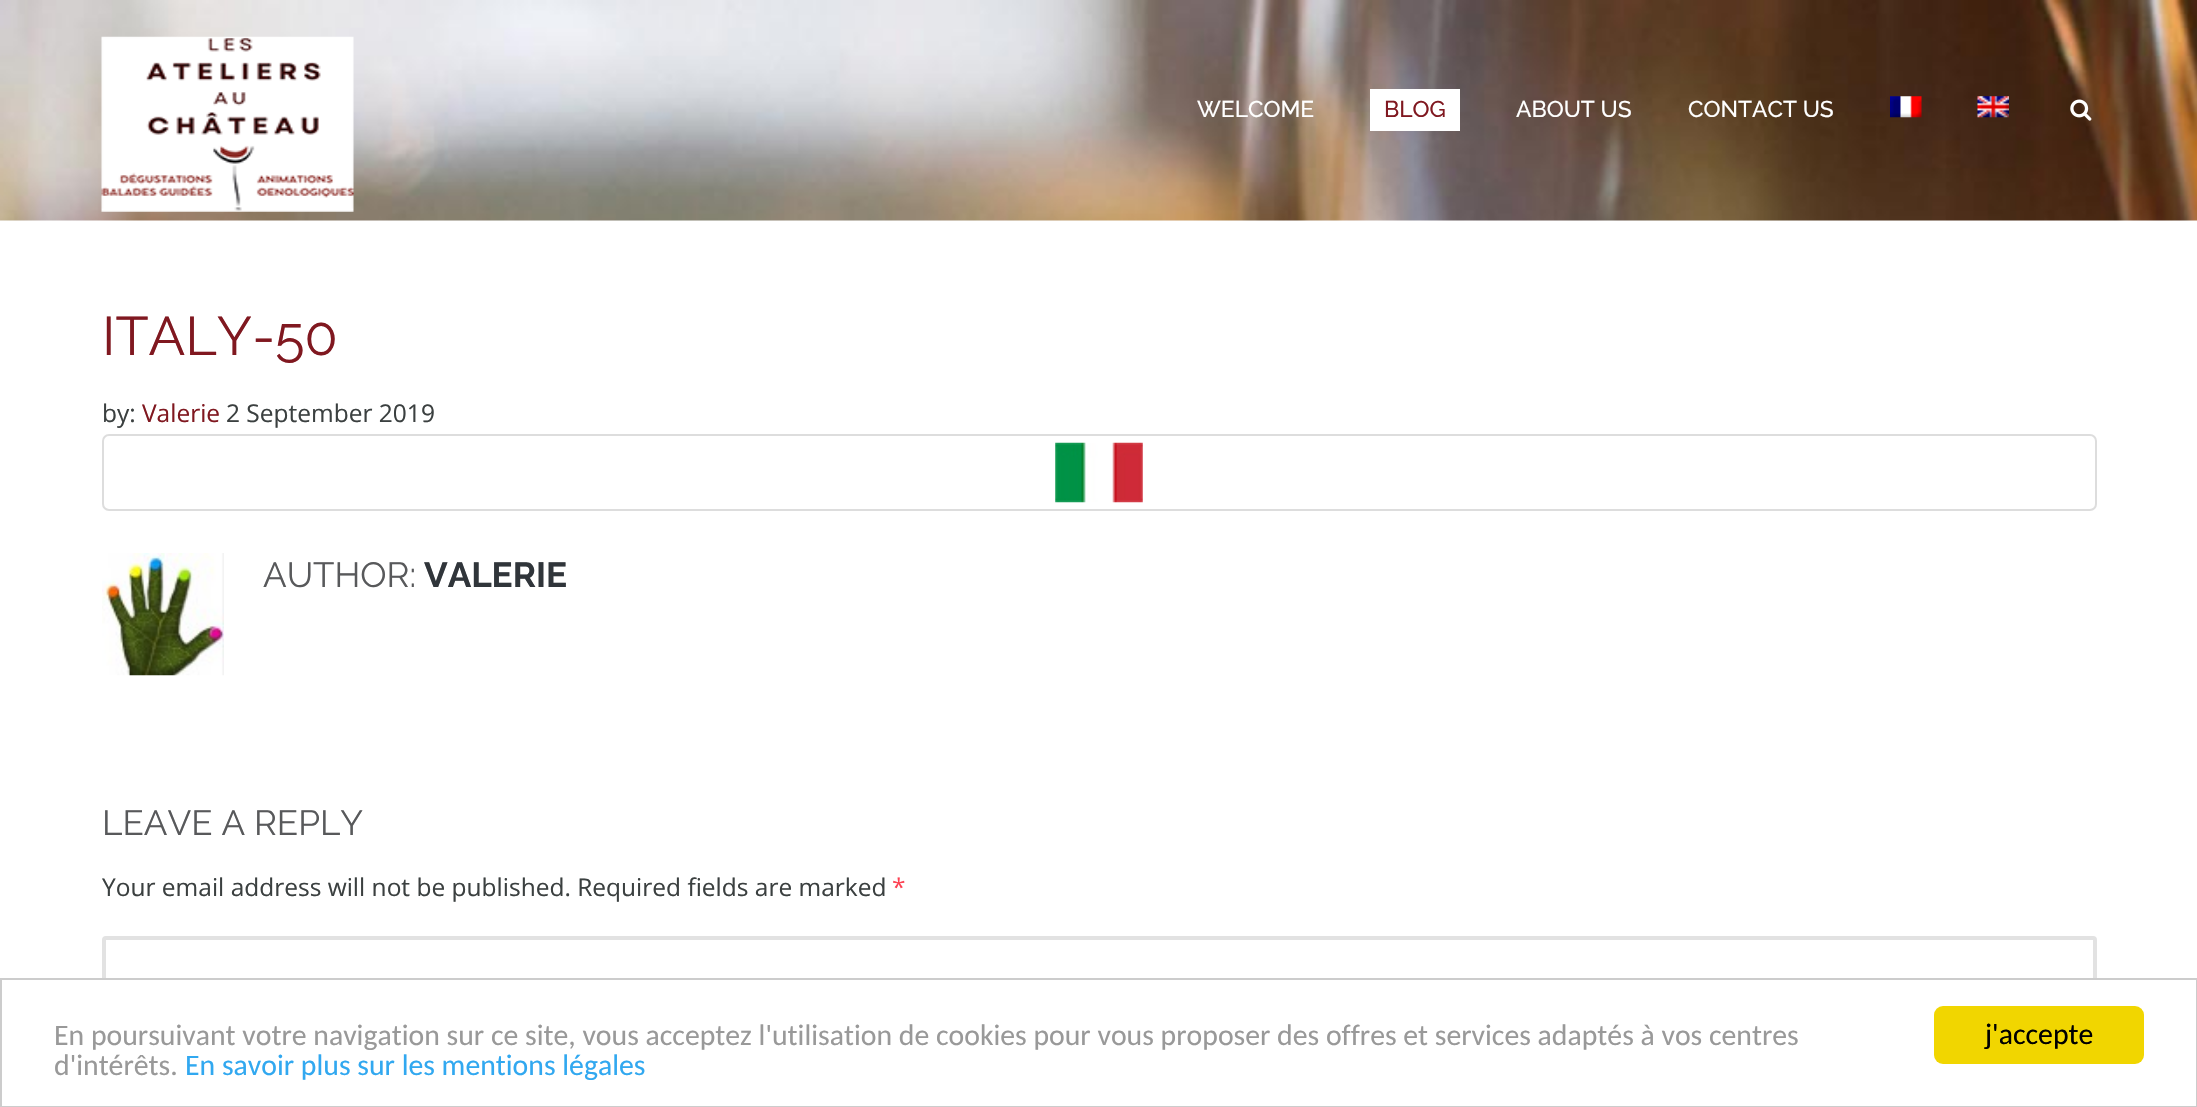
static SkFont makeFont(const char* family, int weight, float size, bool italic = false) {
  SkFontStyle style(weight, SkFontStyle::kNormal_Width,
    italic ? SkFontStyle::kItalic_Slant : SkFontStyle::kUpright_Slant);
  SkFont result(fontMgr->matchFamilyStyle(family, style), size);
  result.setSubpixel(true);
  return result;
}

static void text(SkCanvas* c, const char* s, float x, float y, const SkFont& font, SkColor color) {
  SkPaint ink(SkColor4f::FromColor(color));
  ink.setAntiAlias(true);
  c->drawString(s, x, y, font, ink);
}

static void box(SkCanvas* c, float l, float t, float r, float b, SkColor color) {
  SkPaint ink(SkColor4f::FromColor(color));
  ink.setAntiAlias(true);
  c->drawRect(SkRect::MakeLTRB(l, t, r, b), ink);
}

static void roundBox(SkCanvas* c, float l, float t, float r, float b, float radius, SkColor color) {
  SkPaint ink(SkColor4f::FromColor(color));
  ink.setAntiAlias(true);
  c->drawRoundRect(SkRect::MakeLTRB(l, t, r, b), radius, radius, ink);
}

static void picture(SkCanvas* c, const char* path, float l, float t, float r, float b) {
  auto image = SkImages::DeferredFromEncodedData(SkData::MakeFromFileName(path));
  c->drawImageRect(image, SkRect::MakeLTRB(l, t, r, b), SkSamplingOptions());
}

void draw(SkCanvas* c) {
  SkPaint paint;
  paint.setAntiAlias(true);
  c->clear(0xffffffff);
  picture(c, "img_01.png", 0, 0, 2197, 221);
  picture(c, "img_02.png", 101, 36, 354, 212);
  SkFont face1 = makeFont("Raleway", 500, 22.75f);
  text(c, "WELCOME", 1197, 117, face1, 0xffffffff);
  box(c, 1370, 89, 1460, 131, 0xffffffff);
  text(c, "BLOG", 1384, 117, face1, 0xff801820);
  text(c, "ABOUT US", 1516, 117, face1, 0xffffffff);
  text(c, "CONTACT US", 1688, 117, face1, 0xffffffff);
  picture(c, "img_03.png", 1890, 96, 1922, 118);
  picture(c, "img_04.png", 1977, 96, 2009, 118);
  picture(c, "img_05.png", 2070, 99, 2092, 121);
  SkFont face2 = makeFont("Raleway", 400, 54.25f);
  text(c, "ITALY-50", 102, 355, face2, 0xff801820);
  SkFont face3 = makeFont("Open Sans", 400, 24.5f);
  text(c, "by:", 102, 422, face3, 0xff3b4040);
  text(c, "Valerie", 142, 422, face3, 0xff801820);
  text(c, "2 September 2019", 226, 422, face3, 0xff3b4040);
  paint.setStyle(SkPaint::kStroke_Style);
  paint.setStrokeWidth(2);
  paint.setColor(0xffdddddd);
  c->drawRoundRect(SkRect::MakeLTRB(103, 435, 2096, 510), 6, 6, paint);
  picture(c, "img_06.png", 1055, 442, 1143, 503);
  picture(c, "img_07.png", 102, 553, 224, 676);
  SkFont face4 = makeFont("Raleway", 400, 35);
  text(c, "AUTHOR:", 263, 587, face4, 0xff58595b);
  SkFont face5 = makeFont("Raleway", 700, 35);
  text(c, "VALERIE", 424, 587, face5, 0xff30353a);
  text(c, "LEAVE A REPLY", 102, 835, face4, 0xff58595b);
  text(c, "Your email address will not be published. Required fields are marked", 102, 896, face3, 0xff3b4040);
  text(c, "*", 892, 896, face3, 0xfffd4253);
  paint.setStrokeWidth(4);
  paint.setColor(0xffe2e2e2);
  c->drawRoundRect(SkRect::MakeLTRB(104, 938, 2095, 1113), 2, 2, paint);
  box(c, 102, 980, 2097, 1106, 0xffffffff);
  paint.setStrokeWidth(2);
  paint.setColor(0xffcccccc);
  c->drawRect(SkRect::MakeLTRB(1, 979, 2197, 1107), paint);
  SkFont face6 = makeFont("Carlito", 400, 29.75f);
  text(c, "En poursuivant votre navigation sur ce site, vous acceptez l'utilisation de cookies pour vous proposer des offres et services adaptés à vos centres", 54, 1045, face6, 0xff999999);
  text(c, "d'intérêts.", 54, 1075, face6, 0xff999999);
  text(c, "En savoir plus sur les mentions légales", 185, 1075, face6, 0xff31a8f0);
  roundBox(c, 1934, 1006, 2144, 1064, 9, 0xfff1d600);
  text(c, "j'accepte", 1985, 1044, face6, 0xff000000);
}
